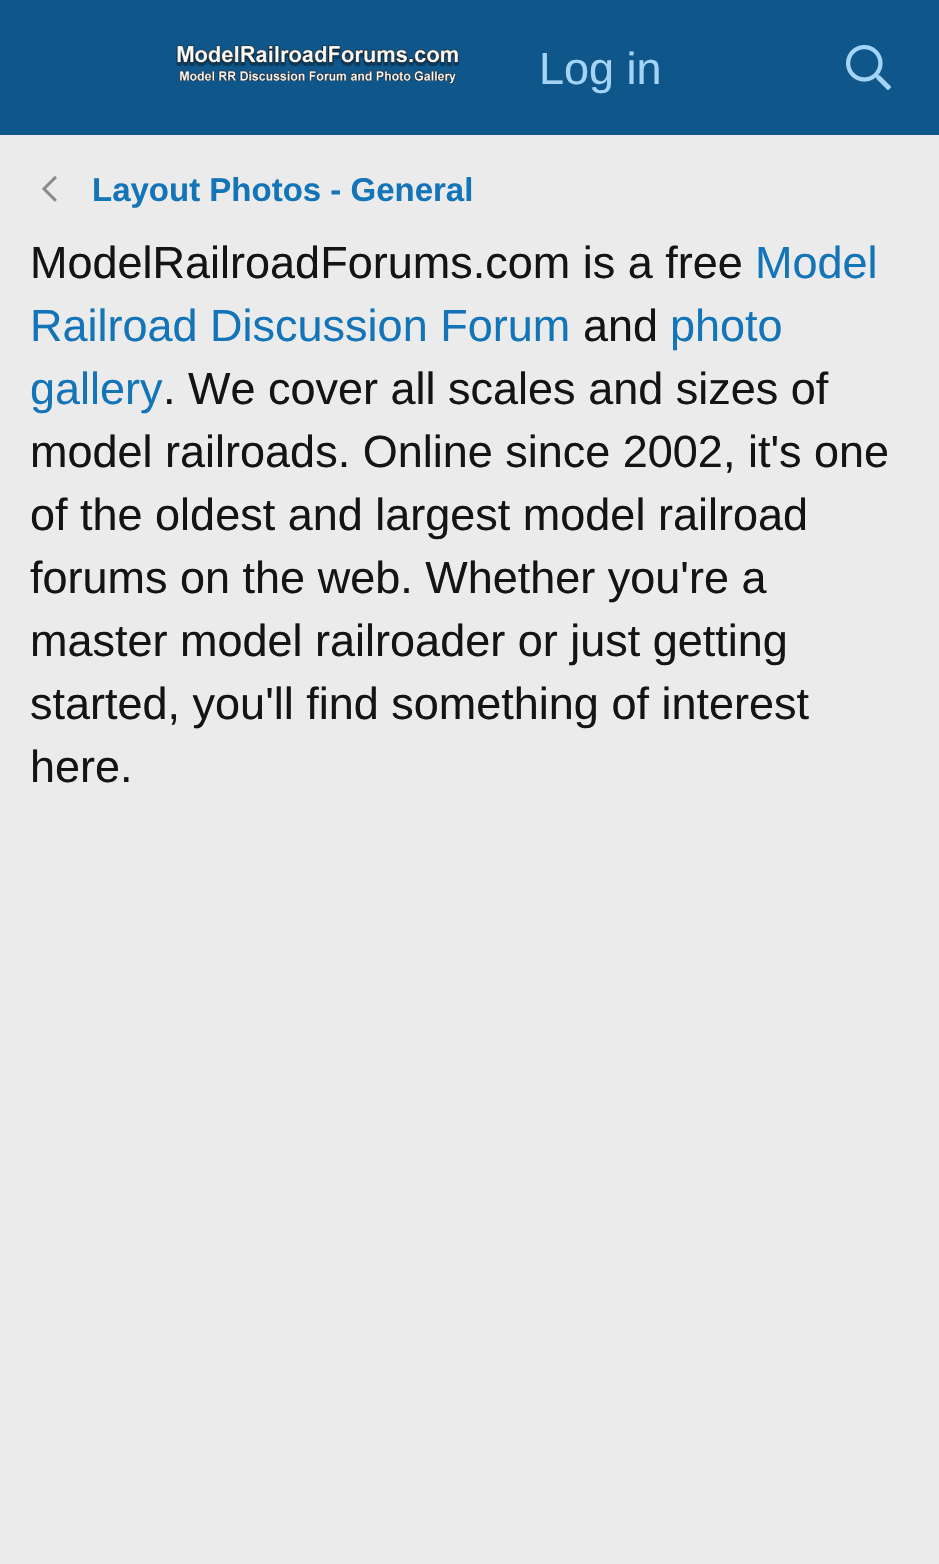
static SkFont makeFont(const char* family, int weight, float size, bool italic = false) {
  SkFontStyle style(weight, SkFontStyle::kNormal_Width,
    italic ? SkFontStyle::kItalic_Slant : SkFontStyle::kUpright_Slant);
  SkFont result(fontMgr->matchFamilyStyle(family, style), size);
  result.setSubpixel(true);
  return result;
}

static void text(SkCanvas* c, const char* s, float x, float y, const SkFont& font, SkColor color) {
  SkPaint ink(SkColor4f::FromColor(color));
  ink.setAntiAlias(true);
  c->drawString(s, x, y, font, ink);
}

static void box(SkCanvas* c, float l, float t, float r, float b, SkColor color) {
  SkPaint ink(SkColor4f::FromColor(color));
  ink.setAntiAlias(true);
  c->drawRect(SkRect::MakeLTRB(l, t, r, b), ink);
}

static void picture(SkCanvas* c, const char* path, float l, float t, float r, float b) {
  auto image = SkImages::DeferredFromEncodedData(SkData::MakeFromFileName(path));
  c->drawImageRect(image, SkRect::MakeLTRB(l, t, r, b), SkSamplingOptions());
}

void draw(SkCanvas* c) {
  SkPaint paint;
  paint.setAntiAlias(true);
  c->clear(0xffebebeb);
  box(c, 0, 0, 939, 135, 0xff0f578a);
  picture(c, "img_01.png", 176, 45, 460, 85);
  SkFont face1 = makeFont("Liberation Sans", 400, 45);
  text(c, "Log in", 539, 84, face1, 0xffa3d4f5);
  picture(c, "img_02.png", 846, 45, 891, 90);
  picture(c, "img_03.png", 42, 176, 57, 202);
  SkFont face2 = makeFont("Liberation Sans", 700, 33);
  text(c, "Layout Photos - General", 92, 201, face2, 0xff1474b8);
  text(c, "ModelRailroadForums.com is a free", 30, 278, face1, 0xff141414);
  text(c, "Model", 755, 278, face1, 0xff1474b8);
  text(c, "Railroad Discussion Forum", 30, 341, face1, 0xff1474b8);
  text(c, "and", 583, 341, face1, 0xff141414);
  text(c, "photo", 670, 341, face1, 0xff1474b8);
  text(c, "gallery", 30, 404, face1, 0xff1474b8);
  text(c, ". We cover all scales and sizes of", 163, 404, face1, 0xff141414);
  text(c, "model railroads. Online since 2002, it's one", 30, 467, face1, 0xff141414);
  text(c, "of the oldest and largest model railroad", 30, 530, face1, 0xff141414);
  text(c, "forums on the web. Whether you're a", 30, 593, face1, 0xff141414);
  text(c, "master model railroader or just getting", 30, 656, face1, 0xff141414);
  text(c, "started, you'll find something of interest", 30, 719, face1, 0xff141414);
  text(c, "here.", 30, 782, face1, 0xff141414);
}
